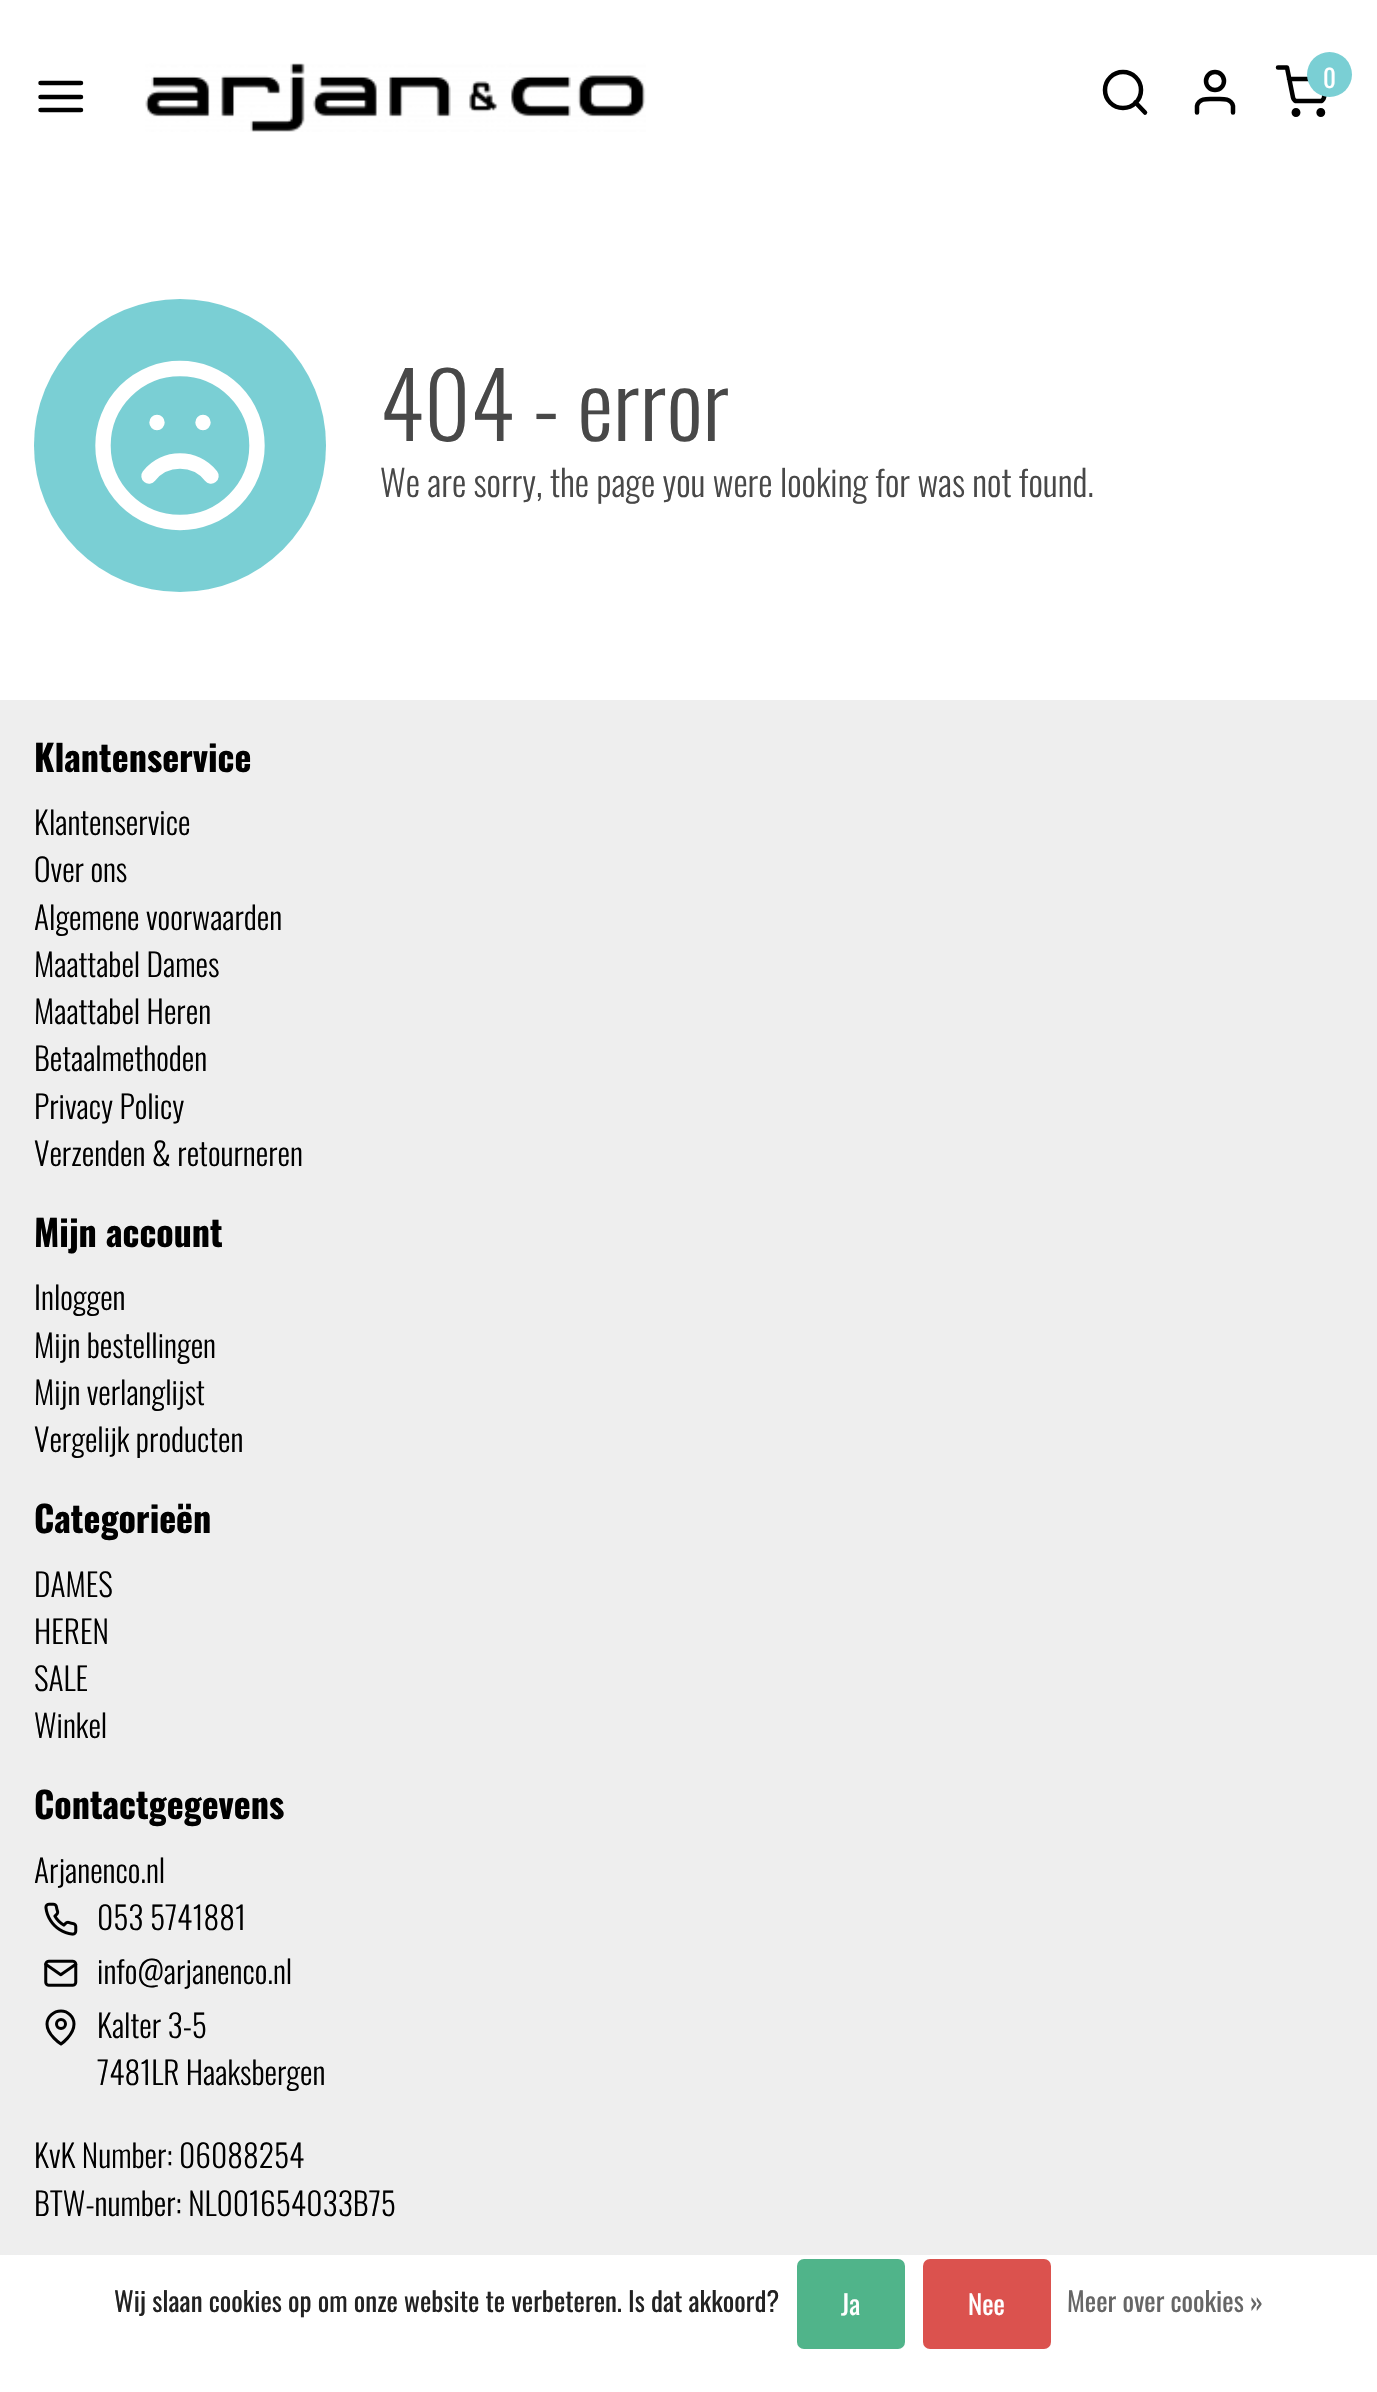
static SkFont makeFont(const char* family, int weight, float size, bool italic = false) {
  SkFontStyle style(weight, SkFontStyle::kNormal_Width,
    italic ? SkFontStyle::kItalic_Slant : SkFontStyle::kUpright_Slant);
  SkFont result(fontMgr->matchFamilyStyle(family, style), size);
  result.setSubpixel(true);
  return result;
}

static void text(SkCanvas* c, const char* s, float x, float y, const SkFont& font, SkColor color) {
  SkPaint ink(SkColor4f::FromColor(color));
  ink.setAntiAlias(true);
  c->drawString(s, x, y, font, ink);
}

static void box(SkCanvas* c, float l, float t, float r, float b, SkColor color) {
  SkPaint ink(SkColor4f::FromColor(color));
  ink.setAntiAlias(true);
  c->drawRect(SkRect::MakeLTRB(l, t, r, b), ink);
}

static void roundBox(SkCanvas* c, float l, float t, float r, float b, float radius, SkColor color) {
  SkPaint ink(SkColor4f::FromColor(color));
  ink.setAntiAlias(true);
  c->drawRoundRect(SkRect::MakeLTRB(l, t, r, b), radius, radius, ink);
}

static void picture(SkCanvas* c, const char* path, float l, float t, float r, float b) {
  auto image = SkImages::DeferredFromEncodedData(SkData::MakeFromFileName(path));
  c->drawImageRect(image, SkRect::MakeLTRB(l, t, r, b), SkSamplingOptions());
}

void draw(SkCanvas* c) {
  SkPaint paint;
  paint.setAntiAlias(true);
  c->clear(0xffffffff);
  paint.setStyle(SkPaint::kStroke_Style);
  paint.setStrokeWidth(4.5f);
  paint.setStrokeCap(SkPaint::kRound_Cap);
  paint.setStrokeJoin(SkPaint::kRound_Join);
  paint.setColor(0xff000000);
  c->drawPath(SkPathBuilder().moveTo(40.5f, 97).lineTo(81, 97).moveTo(40.5f, 83).lineTo(81, 83).moveTo(40.5f, 110).lineTo(81, 110).detach(), paint);
  picture(c, "img_01.png", 145, 63, 646, 132);
  paint.setStrokeCap(SkPaint::kButt_Cap);
  paint.setStrokeJoin(SkPaint::kMiter_Join);
  c->drawCircle(1123, 90, 18, paint);
  paint.setStrokeCap(SkPaint::kRound_Cap);
  paint.setStrokeJoin(SkPaint::kRound_Join);
  c->drawPath(SkPathBuilder().moveTo(1145, 112.5f).lineTo(1135.5f, 102.5f).detach(), paint);
  c->drawPath(SkPathBuilder().moveTo(1233, 112.5f).lineTo(1233, 106).cubicTo(1231, 97.5f, 1221.5f, 99, 1215, 99).cubicTo(1208.5f, 99, 1199, 97.5f, 1197, 106).lineTo(1197, 112.5f).detach(), paint);
  paint.setStrokeCap(SkPaint::kButt_Cap);
  paint.setStrokeJoin(SkPaint::kMiter_Join);
  c->drawCircle(1215, 81, 9, paint);
  c->drawCircle(1296, 112.5f, 2.2f, paint);
  c->drawCircle(1320.8f, 112.5f, 2.2f, paint);
  paint.setStrokeCap(SkPaint::kRound_Cap);
  paint.setStrokeJoin(SkPaint::kRound_Join);
  c->drawPath(SkPathBuilder().moveTo(1278, 67.5f).lineTo(1287, 67.5f).lineTo(1293, 97.5f).cubicTo(1293.5f, 100, 1295.5f, 101.5f, 1297.5f, 101).lineTo(1319.5f, 101).cubicTo(1321.5f, 101.5f, 1323.5f, 100, 1324, 97.5f).lineTo(1327.5f, 79).lineTo(1289, 79).detach(), paint);
  paint.setStyle(SkPaint::kFill_Style);
  paint.setColor(0xff7acfd4);
  c->drawCircle(1329.5f, 74.5f, 22.5f, paint);
  SkFont face1 = makeFont("Oswald", 400, 25);
  text(c, "0", 1323, 88, face1, 0xffffffff);
  roundBox(c, 34, 299, 326, 592, 146, 0xff7acfd4);
  paint.setStyle(SkPaint::kStroke_Style);
  paint.setStrokeWidth(15.4f);
  paint.setStrokeCap(SkPaint::kButt_Cap);
  paint.setStrokeJoin(SkPaint::kMiter_Join);
  paint.setColor(0xffffffff);
  c->drawCircle(180, 445.5f, 77, paint);
  paint.setStrokeCap(SkPaint::kRound_Cap);
  paint.setStrokeJoin(SkPaint::kRound_Join);
  c->drawPath(SkPathBuilder().moveTo(211, 476).cubicTo(195.5f, 456, 164.5f, 456, 149, 476).detach(), paint);
  c->drawPath(SkPathBuilder().moveTo(157, 422.5f).lineTo(157, 422.5f).moveTo(203, 422.5f).lineTo(203, 422.5f).detach(), paint);
  SkFont face2 = makeFont("Oswald", 300, 90);
  text(c, "404 - error", 380, 441, face2, 0xff484848);
  SkFont face3 = makeFont("Oswald", 300, 36);
  text(c, "We are sorry, the page you were looking for was not found.", 380, 497, face3, 0xff484848);
  box(c, 0, 700, 1377, 2255, 0xffeeeeee);
  SkFont face4 = makeFont("Oswald", 700, 36);
  text(c, "Klantenservice", 34, 772, face4, 0xff000000);
  SkFont face5 = makeFont("Oswald", 300, 31.5f);
  text(c, "Klantenservice", 34, 835, face5, 0xff000000);
  text(c, "Over ons", 34, 882, face5, 0xff000000);
  text(c, "Algemene voorwaarden", 34, 930, face5, 0xff000000);
  text(c, "Maattabel Dames", 34, 977, face5, 0xff000000);
  text(c, "Maattabel Heren", 34, 1024, face5, 0xff000000);
  text(c, "Betaalmethoden", 34, 1071, face5, 0xff000000);
  text(c, "Privacy Policy", 34, 1119, face5, 0xff000000);
  text(c, "Verzenden & retourneren", 34, 1166, face5, 0xff000000);
  text(c, "Mijn account", 34, 1247, face4, 0xff000000);
  text(c, "Inloggen", 34, 1310, face5, 0xff000000);
  text(c, "Mijn bestellingen", 34, 1358, face5, 0xff000000);
  text(c, "Mijn verlanglijst", 34, 1405, face5, 0xff000000);
  text(c, "Vergelijk producten", 34, 1452, face5, 0xff000000);
  text(c, "Categorieën", 34, 1533, face4, 0xff000000);
  text(c, "DAMES", 34, 1597, face5, 0xff000000);
  text(c, "HEREN", 34, 1644, face5, 0xff000000);
  text(c, "SALE", 34, 1691, face5, 0xff000000);
  text(c, "Winkel", 34, 1738, face5, 0xff000000);
  text(c, "Contactgegevens", 34, 1819, face4, 0xff000000);
  text(c, "Arjanenco.nl", 34, 1883, face5, 0xff000000);
  picture(c, "img_02.png", 44, 1902, 78, 1936);
  text(c, "053 5741881", 97, 1930, face5, 0xff000000);
  picture(c, "img_03.png", 44, 1959, 78, 1987);
  text(c, "info@arjanenco.nl", 97, 1984, face5, 0xff000000);
  paint.setStrokeWidth(3);
  paint.setColor(0xff000000);
  c->drawPath(SkPathBuilder().moveTo(74, 2024).cubicTo(74, 2035, 61, 2044, 61, 2044).cubicTo(61, 2044, 47, 2035, 47, 2024).cubicTo(47, 2017, 53.5f, 2011, 61, 2011).cubicTo(68, 2011, 74, 2017, 74, 2024).close().detach(), paint);
  paint.setStrokeCap(SkPaint::kButt_Cap);
  paint.setStrokeJoin(SkPaint::kMiter_Join);
  c->drawCircle(61, 2024, 4.5f, paint);
  text(c, "Kalter 3-5", 97, 2038, face5, 0xff000000);
  text(c, "7481LR Haaksbergen", 97, 2085, face5, 0xff000000);
  text(c, "KvK Number: 06088254", 34, 2168, face5, 0xff000000);
  text(c, "BTW-number: NL001654033B75", 34, 2216, face5, 0xff000000);
  SkFont face6 = makeFont("Oswald", 400, 27);
  text(c, "Wij slaan cookies op om onze website te verbeteren. Is dat akkoord?", 114, 2312, face6, 0xff222222);
  roundBox(c, 797, 2259, 905, 2349, 7, 0xff50b48a);
  text(c, "Ja", 841, 2315, face6, 0xffffffff);
  roundBox(c, 923, 2259, 1051, 2349, 7, 0xffdb524e);
  text(c, "Nee", 968, 2315, face6, 0xffffffff);
  text(c, "Meer over cookies »", 1067, 2312, face6, 0xff666666);
}
